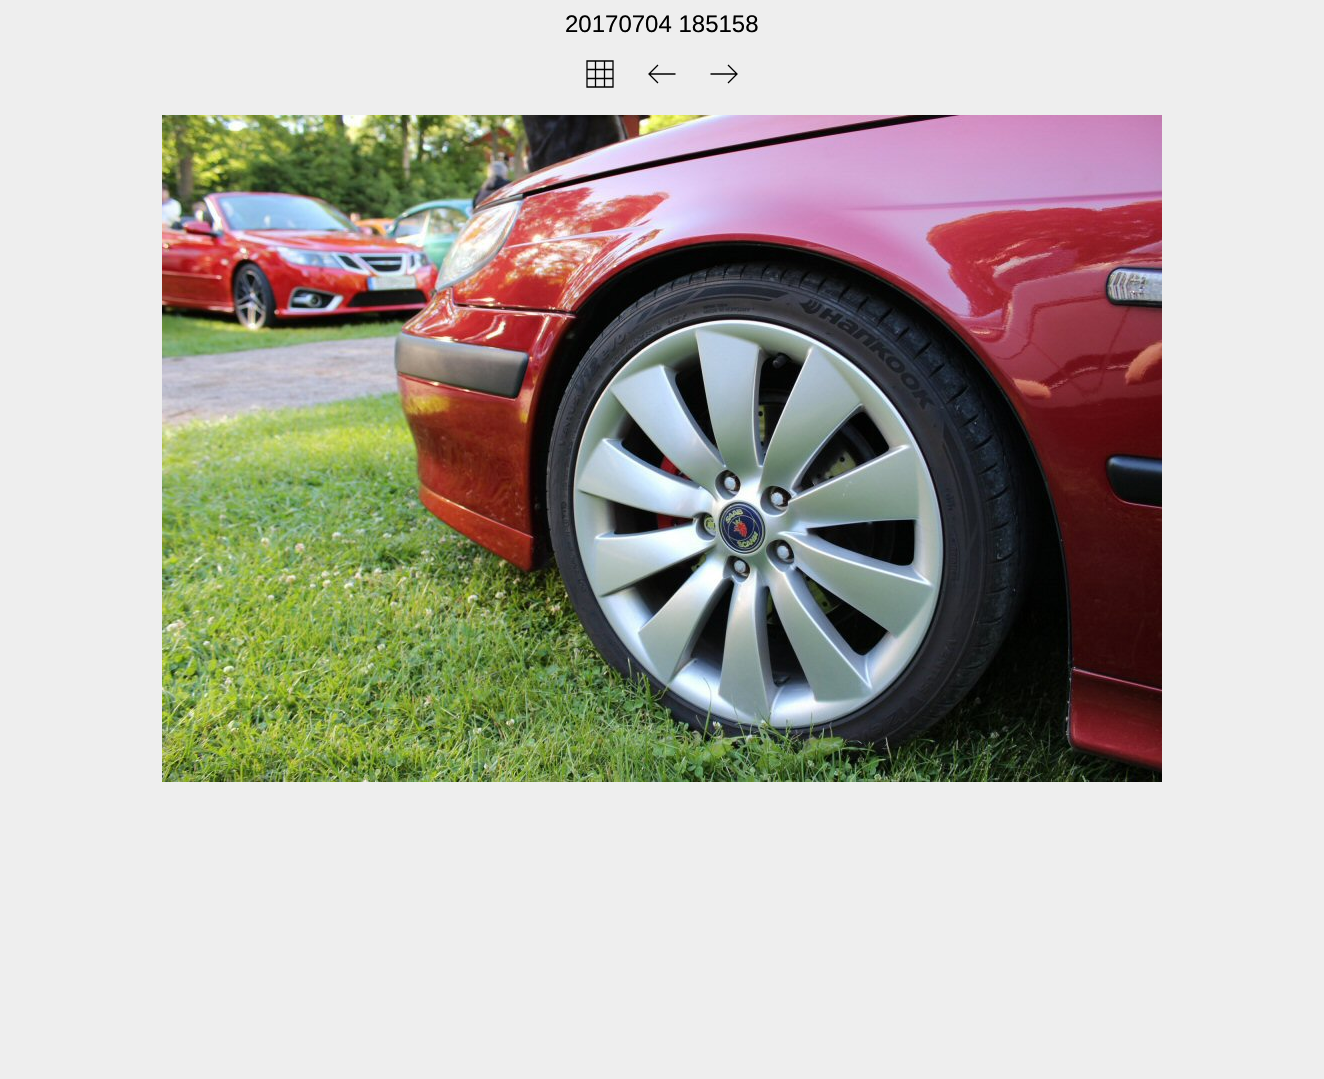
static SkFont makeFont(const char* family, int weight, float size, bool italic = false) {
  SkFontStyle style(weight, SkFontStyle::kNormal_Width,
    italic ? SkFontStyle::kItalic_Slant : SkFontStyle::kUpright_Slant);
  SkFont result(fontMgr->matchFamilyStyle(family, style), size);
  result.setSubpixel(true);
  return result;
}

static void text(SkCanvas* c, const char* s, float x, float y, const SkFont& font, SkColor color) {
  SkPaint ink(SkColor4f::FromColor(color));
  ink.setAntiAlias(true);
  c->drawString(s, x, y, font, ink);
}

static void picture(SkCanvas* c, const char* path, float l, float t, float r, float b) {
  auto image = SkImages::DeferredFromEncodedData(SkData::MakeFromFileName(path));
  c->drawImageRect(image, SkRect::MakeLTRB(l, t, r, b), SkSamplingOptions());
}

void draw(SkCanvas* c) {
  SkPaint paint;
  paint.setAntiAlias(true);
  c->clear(0xffeeeeee);
  SkFont face1 = makeFont("Liberation Sans", 400, 24);
  text(c, "20170704 185158", 565, 32, face1, 0xff000000);
  paint.setStyle(SkPaint::kStroke_Style);
  paint.setStrokeWidth(1.3f);
  paint.setColor(0xff000000);
  c->drawPath(SkPathBuilder().moveTo(587, 61).lineTo(613, 61).lineTo(613, 87).lineTo(587, 87).close().moveTo(595.5f, 61).lineTo(595.5f, 87).moveTo(604.5f, 61).lineTo(604.5f, 87).moveTo(587, 69.5f).lineTo(613, 69.5f).moveTo(587, 78.5f).lineTo(613, 78.5f).detach(), paint);
  c->drawPath(SkPathBuilder().moveTo(675.5f, 74).lineTo(649, 74).moveTo(658, 83).lineTo(649, 74).lineTo(658, 65).detach(), paint);
  c->drawPath(SkPathBuilder().moveTo(710.5f, 74).lineTo(737, 74).moveTo(728, 65).lineTo(737, 74).lineTo(728, 83).detach(), paint);
  picture(c, "img_01.png", 162, 115, 1162, 782);
}
